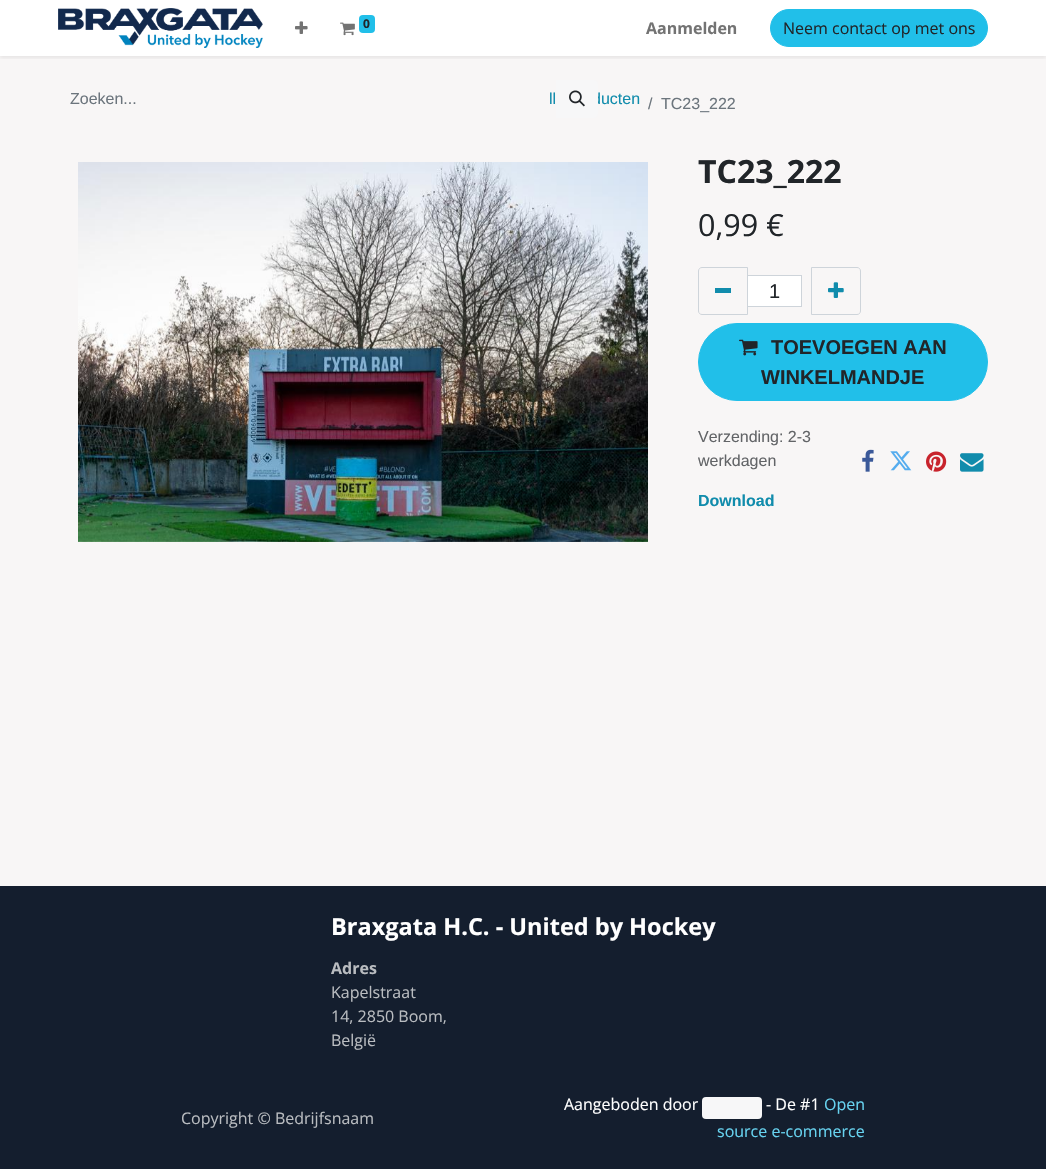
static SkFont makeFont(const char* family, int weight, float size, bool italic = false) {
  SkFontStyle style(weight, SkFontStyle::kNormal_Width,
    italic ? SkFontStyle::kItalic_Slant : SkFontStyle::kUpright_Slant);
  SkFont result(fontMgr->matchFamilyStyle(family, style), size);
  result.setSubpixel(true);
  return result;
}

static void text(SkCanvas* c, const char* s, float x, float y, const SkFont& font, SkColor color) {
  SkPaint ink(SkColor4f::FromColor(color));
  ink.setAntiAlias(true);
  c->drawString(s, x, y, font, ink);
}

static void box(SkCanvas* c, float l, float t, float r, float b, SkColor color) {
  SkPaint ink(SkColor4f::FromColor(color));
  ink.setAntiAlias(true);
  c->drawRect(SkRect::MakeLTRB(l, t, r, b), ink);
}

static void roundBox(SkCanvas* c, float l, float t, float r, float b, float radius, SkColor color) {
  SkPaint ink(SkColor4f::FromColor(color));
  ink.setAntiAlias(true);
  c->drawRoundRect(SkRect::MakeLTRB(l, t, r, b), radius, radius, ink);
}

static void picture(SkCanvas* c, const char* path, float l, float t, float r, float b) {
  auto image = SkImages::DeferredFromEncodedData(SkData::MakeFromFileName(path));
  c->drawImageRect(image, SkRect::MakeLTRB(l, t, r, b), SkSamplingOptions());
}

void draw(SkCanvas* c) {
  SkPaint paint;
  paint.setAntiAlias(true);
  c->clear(0xffffffff);
  box(c, 0, 56, 1046, 886, 0xfff8f6f6);
  c->save();
  c->clipRect(SkRect::MakeLTRB(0, 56, 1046, 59));
  paint.setColor(0x12000000);
  paint.setMaskFilter(SkMaskFilter::MakeBlur(kNormal_SkBlurStyle, 2));
  c->drawRect(SkRect::MakeLTRB(0, 2, 1046, 58), paint);
  paint.setMaskFilter(nullptr);
  c->restore();
  picture(c, "img_01.png", 58, 8, 263, 48);
  picture(c, "img_02.png", 295, 21, 308, 34);
  picture(c, "img_03.png", 340, 22, 355, 36);
  roundBox(c, 359, 15, 375, 33, 4, 0xff21bfe9);
  SkFont face1 = makeFont("Open Sans", 700, 12);
  text(c, "0", 363, 28, face1, 0xff212529);
  SkFont face2 = makeFont("Open Sans", 700, 16);
  text(c, "Aanmelden", 646, 34, face2, 0xff737373);
  paint.setColor(0xff21bfe9);
  c->drawRoundRect(SkRect::MakeLTRB(770.5f, 9.5f, 987.5f, 46.5f), 18.5f, 18.5f, paint);
  paint.setStyle(SkPaint::kStroke_Style);
  paint.setStrokeWidth(1);
  c->drawRoundRect(SkRect::MakeLTRB(770.5f, 9.5f, 987.5f, 46.5f), 18.5f, 18.5f, paint);
  SkFont face3 = makeFont("Open Sans", 400, 16);
  text(c, "Neem contact op met ons", 783, 34, face3, 0xff212529);
  SkFont face4 = makeFont("Liberation Sans", 400, 16);
  text(c, "Zoeken...", 70, 104, face4, 0xff6c757d);
  text(c, "ducten", 592, 104, face4, 0xff118cac);
  paint.setStyle(SkPaint::kFill_Style);
  paint.setColor(0xfff7f7f8);
  c->drawPath(SkPathBuilder().moveTo(556, 80).lineTo(594, 80).cubicTo(596, 80, 598, 82, 598, 84).lineTo(598, 114).cubicTo(598, 116, 596, 118, 594, 118).lineTo(556, 118).close().detach(), paint);
  picture(c, "img_04.png", 569, 90, 585, 107);
  text(c, "ll", 549, 104, face4, 0xff118cac);
  text(c, "/", 648, 109, face4, 0xff6c757d);
  text(c, "TC23_222", 661, 109, face4, 0xff6c757d);
  picture(c, "img_05.png", 78, 162, 648, 542);
  SkFont face5 = makeFont("Open Sans", 700, 32);
  text(c, "TC23_222", 698, 183, face5, 0xff212529);
  SkFont face6 = makeFont("Open Sans", 400, 30.5f);
  text(c, "0,99 €", 698, 236, face6, 0xff212529);
  paint.setColor(0xffffffff);
  c->drawRect(SkRect::MakeLTRB(747.5f, 275.5f, 801.5f, 306.5f), paint);
  paint.setStyle(SkPaint::kStroke_Style);
  paint.setColor(0xffced4da);
  c->drawRect(SkRect::MakeLTRB(747.5f, 275.5f, 801.5f, 306.5f), paint);
  c->drawPath(SkPathBuilder().moveTo(702, 267.5f).lineTo(747.5f, 267.5f).lineTo(747.5f, 314.5f).lineTo(702, 314.5f).cubicTo(700, 314.5f, 698.5f, 313, 698.5f, 311).lineTo(698.5f, 271).cubicTo(698.5f, 269, 700, 267.5f, 702, 267.5f).close().detach(), paint);
  box(c, 715, 288, 731, 293, 0xff118cac);
  SkFont face7 = makeFont("Liberation Sans", 400, 20);
  text(c, "1", 769, 298, face7, 0xff212529);
  c->drawPath(SkPathBuilder().moveTo(811.5f, 267.5f).lineTo(857, 267.5f).cubicTo(859, 267.5f, 860.5f, 269, 860.5f, 271).lineTo(860.5f, 311).cubicTo(860.5f, 313, 859, 314.5f, 857, 314.5f).lineTo(811.5f, 314.5f).close().detach(), paint);
  picture(c, "img_06.png", 828, 282, 844, 298);
  paint.setStyle(SkPaint::kFill_Style);
  paint.setColor(0xff21bfe9);
  c->drawRoundRect(SkRect::MakeLTRB(698.5f, 323.5f, 987.5f, 400.5f), 38.5f, 38.5f, paint);
  paint.setStyle(SkPaint::kStroke_Style);
  c->drawRoundRect(SkRect::MakeLTRB(698.5f, 323.5f, 987.5f, 400.5f), 38.5f, 38.5f, paint);
  picture(c, "img_07.png", 739, 339, 758, 356);
  SkFont face8 = makeFont("Liberation Sans", 700, 20);
  text(c, "TOEVOEGEN AAN", 771, 354, face8, 0xff212529);
  text(c, "WINKELMANDJE", 761, 384, face8, 0xff212529);
  text(c, "Verzending: 2-3", 698, 442, face4, 0xff626467);
  text(c, "werkdagen", 698, 466, face4, 0xff626467);
  picture(c, "img_08.png", 862, 449, 874, 472);
  picture(c, "img_09.png", 890, 451, 912, 471);
  picture(c, "img_10.png", 926, 451, 947, 472);
  picture(c, "img_11.png", 960, 453, 984, 472);
  SkFont face9 = makeFont("Liberation Sans", 700, 16);
  text(c, "Download", 698, 506, face9, 0xff118cac);
  box(c, 0, 886, 1046, 1169, 0xff141e2e);
  SkFont face10 = makeFont("Open Sans", 700, 23.5f);
  text(c, "Braxgata H.C. - United by Hockey", 331, 935, face10, 0xffffffff);
  text(c, "Adres", 331, 974, face2, 0xffb9bcc0);
  text(c, "Kapelstraat", 331, 998, face3, 0xffb9bcc0);
  text(c, "14, 2850 Boom,", 331, 1022, face3, 0xffb9bcc0);
  text(c, "België", 331, 1046, face3, 0xffb9bcc0);
  text(c, "Copyright © Bedrijfsnaam", 181, 1124, face3, 0xffb9bcc0);
  text(c, "Aangeboden door", 564, 1110, face3, 0xffffffff);
  roundBox(c, 702, 1097, 762, 1119, 4, 0xfff7f7f8);
  text(c, "- De #1", 766, 1110, face3, 0xffffffff);
  text(c, "Open", 824, 1110, face3, 0xff67d3f0);
  text(c, "source e-commerce", 717, 1137, face3, 0xff67d3f0);
}
